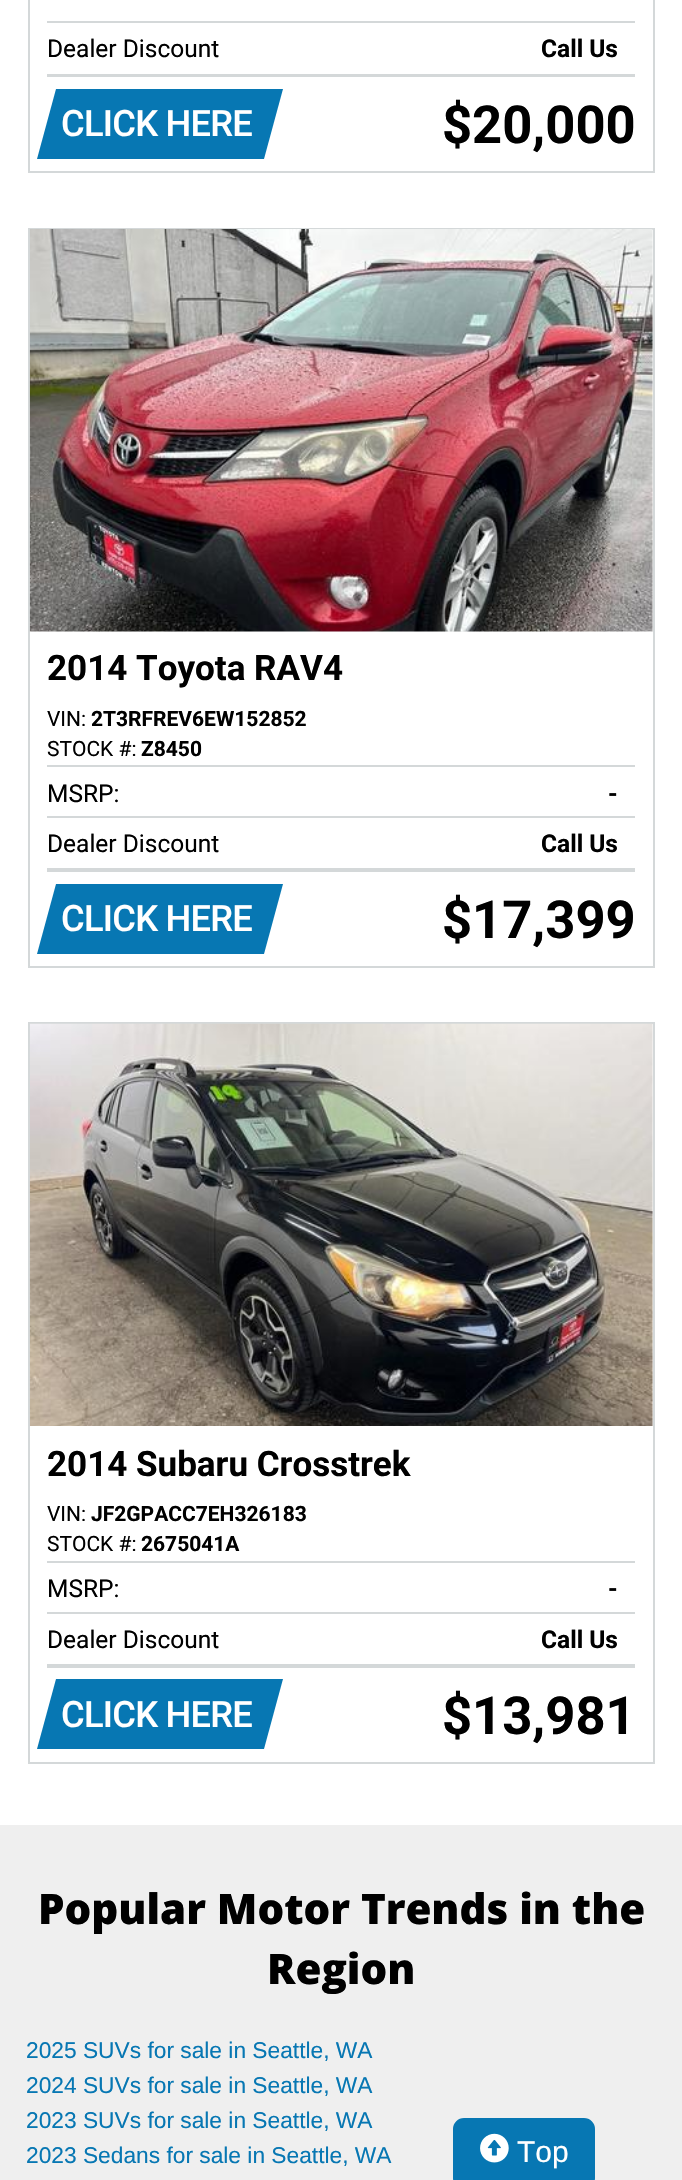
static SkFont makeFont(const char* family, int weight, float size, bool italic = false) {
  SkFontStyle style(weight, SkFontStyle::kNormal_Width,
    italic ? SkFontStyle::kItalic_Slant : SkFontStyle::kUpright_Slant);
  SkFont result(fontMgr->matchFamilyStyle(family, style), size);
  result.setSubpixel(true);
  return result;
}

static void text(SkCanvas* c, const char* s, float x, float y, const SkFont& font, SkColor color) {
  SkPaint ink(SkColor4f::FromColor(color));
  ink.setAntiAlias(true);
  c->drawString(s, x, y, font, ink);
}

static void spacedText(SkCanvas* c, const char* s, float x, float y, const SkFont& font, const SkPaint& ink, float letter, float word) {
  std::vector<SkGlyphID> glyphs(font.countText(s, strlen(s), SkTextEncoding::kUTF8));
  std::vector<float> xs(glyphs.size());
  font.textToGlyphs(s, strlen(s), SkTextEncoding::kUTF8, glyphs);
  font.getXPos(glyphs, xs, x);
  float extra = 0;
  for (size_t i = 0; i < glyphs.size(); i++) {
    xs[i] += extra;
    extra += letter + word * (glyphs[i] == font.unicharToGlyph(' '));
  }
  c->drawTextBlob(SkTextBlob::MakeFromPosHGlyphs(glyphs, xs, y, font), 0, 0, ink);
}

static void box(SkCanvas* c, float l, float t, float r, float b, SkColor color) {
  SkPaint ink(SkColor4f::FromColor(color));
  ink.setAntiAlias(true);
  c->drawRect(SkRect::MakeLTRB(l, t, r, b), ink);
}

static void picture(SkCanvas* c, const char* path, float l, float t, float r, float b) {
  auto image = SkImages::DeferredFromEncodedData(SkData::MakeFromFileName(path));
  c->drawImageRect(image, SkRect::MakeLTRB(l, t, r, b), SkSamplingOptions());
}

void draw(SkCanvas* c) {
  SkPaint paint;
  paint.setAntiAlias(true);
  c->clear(0xffffffff);
  paint.setStyle(SkPaint::kStroke_Style);
  paint.setStrokeWidth(2);
  paint.setColor(0xffd4d8d9);
  c->drawRect(SkRect::MakeLTRB(29, -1, 654, 172), paint);
  box(c, 47, 21, 635, 23, 0xffd4d8d9);
  box(c, 47, 74, 635, 77, 0xffd4d8d9);
  SkFont face1 = makeFont("Roboto", 400, 24.5f);
  text(c, "Dealer Discount", 47, 57, face1, 0xff000000);
  SkFont face2 = makeFont("Roboto", 700, 24.5f);
  text(c, "Call Us", 541, 57, face2, 0xff000000);
  paint.setStyle(SkPaint::kFill_Style);
  paint.setColor(0xff0777b3);
  c->drawPath(SkPathBuilder().moveTo(56, 89).lineTo(283, 89).lineTo(264, 159).lineTo(37, 159).close().detach(), paint);
  SkFont face3 = makeFont("Roboto", 500, 36.25f);
  paint.setColor(0xffffffff);
  spacedText(c, "CLICK HERE", 61, 136, face3, paint, -0.75f, 0);
  SkFont face4 = makeFont("Roboto", 700, 52.5f);
  text(c, "$20,000", 442, 143, face4, 0xff000000);
  paint.setStyle(SkPaint::kStroke_Style);
  paint.setColor(0xffd4d8d9);
  c->drawRect(SkRect::MakeLTRB(29, 229, 654, 967), paint);
  picture(c, "img_01.png", 29, 229, 653, 632);
  SkFont face5 = makeFont("Roboto", 700, 35);
  text(c, "2014 Toyota RAV4", 47, 680, face5, 0xff000000);
  SkFont face6 = makeFont("Roboto", 400, 21);
  text(c, "VIN:", 47, 726, face6, 0xff000000);
  SkFont face7 = makeFont("Roboto", 700, 21);
  text(c, "2T3RFREV6EW152852", 91, 726, face7, 0xff000000);
  text(c, "STOCK #:", 47, 756, face6, 0xff000000);
  text(c, "Z8450", 141, 756, face7, 0xff000000);
  box(c, 47, 765, 635, 767, 0xffd4d8d9);
  box(c, 47, 816, 635, 818, 0xffd4d8d9);
  text(c, "MSRP:", 47, 802, face1, 0xff000000);
  text(c, "-", 608, 802, face2, 0xff000000);
  box(c, 47, 868, 635, 872, 0xffd4d8d9);
  text(c, "Dealer Discount", 47, 852, face1, 0xff000000);
  text(c, "Call Us", 541, 852, face2, 0xff000000);
  paint.setStyle(SkPaint::kFill_Style);
  paint.setColor(0xff0777b3);
  c->drawPath(SkPathBuilder().moveTo(56, 884).lineTo(283, 884).lineTo(264, 954).lineTo(37, 954).close().detach(), paint);
  paint.setColor(0xffffffff);
  spacedText(c, "CLICK HERE", 61, 931, face3, paint, -0.75f, 0);
  text(c, "$17,399", 442, 938, face4, 0xff000000);
  paint.setStyle(SkPaint::kStroke_Style);
  paint.setColor(0xffd4d8d9);
  c->drawRect(SkRect::MakeLTRB(29, 1023, 654, 1763), paint);
  picture(c, "img_02.png", 29, 1023, 653, 1426);
  text(c, "2014 Subaru Crosstrek", 47, 1476, face5, 0xff000000);
  text(c, "VIN:", 47, 1521, face6, 0xff000000);
  text(c, "JF2GPACC7EH326183", 91, 1521, face7, 0xff000000);
  text(c, "STOCK #:", 47, 1551, face6, 0xff000000);
  text(c, "2675041A", 141, 1551, face7, 0xff000000);
  box(c, 47, 1561, 635, 1563, 0xffd4d8d9);
  box(c, 47, 1612, 635, 1614, 0xffd4d8d9);
  text(c, "MSRP:", 47, 1597, face1, 0xff000000);
  text(c, "-", 608, 1597, face2, 0xff000000);
  box(c, 47, 1664, 635, 1668, 0xffd4d8d9);
  text(c, "Dealer Discount", 47, 1648, face1, 0xff000000);
  text(c, "Call Us", 541, 1648, face2, 0xff000000);
  paint.setStyle(SkPaint::kFill_Style);
  paint.setColor(0xff0777b3);
  c->drawPath(SkPathBuilder().moveTo(56, 1679).lineTo(283, 1679).lineTo(264, 1749).lineTo(37, 1749).close().detach(), paint);
  paint.setColor(0xffffffff);
  spacedText(c, "CLICK HERE", 61, 1727, face3, paint, -0.75f, 0);
  text(c, "$13,981", 442, 1734, face4, 0xff000000);
  box(c, 0, 1825, 682, 2180, 0xffefefef);
  paint.setColor(0xff0777b3);
  c->drawRoundRect(SkRect::MakeLTRB(454, 2119, 594, 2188), 10, 10, paint);
  paint.setStyle(SkPaint::kStroke_Style);
  c->drawRoundRect(SkRect::MakeLTRB(454, 2119, 594, 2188), 10, 10, paint);
  picture(c, "img_03.png", 480, 2133, 509, 2163);
  SkFont face8 = makeFont("Liberation Sans", 400, 30);
  text(c, "Top", 517, 2162, face8, 0xffffffff);
  SkFont face9 = makeFont("Open Sans", 800, 42);
  text(c, "Popular Motor Trends in the", 38, 1924, face9, 0xff000000);
  text(c, "Region", 267, 1984, face9, 0xff000000);
  SkFont face10 = makeFont("Liberation Sans", 400, 22.75f);
  text(c, "2025 SUVs for sale in Seattle, WA", 26, 2058, face10, 0xff0777b3);
  text(c, "2024 SUVs for sale in Seattle, WA", 26, 2093, face10, 0xff0777b3);
  text(c, "2023 SUVs for sale in Seattle, WA", 26, 2128, face10, 0xff0777b3);
  text(c, "2023 Sedans for sale in Seattle, WA", 26, 2163, face10, 0xff0777b3);
}
